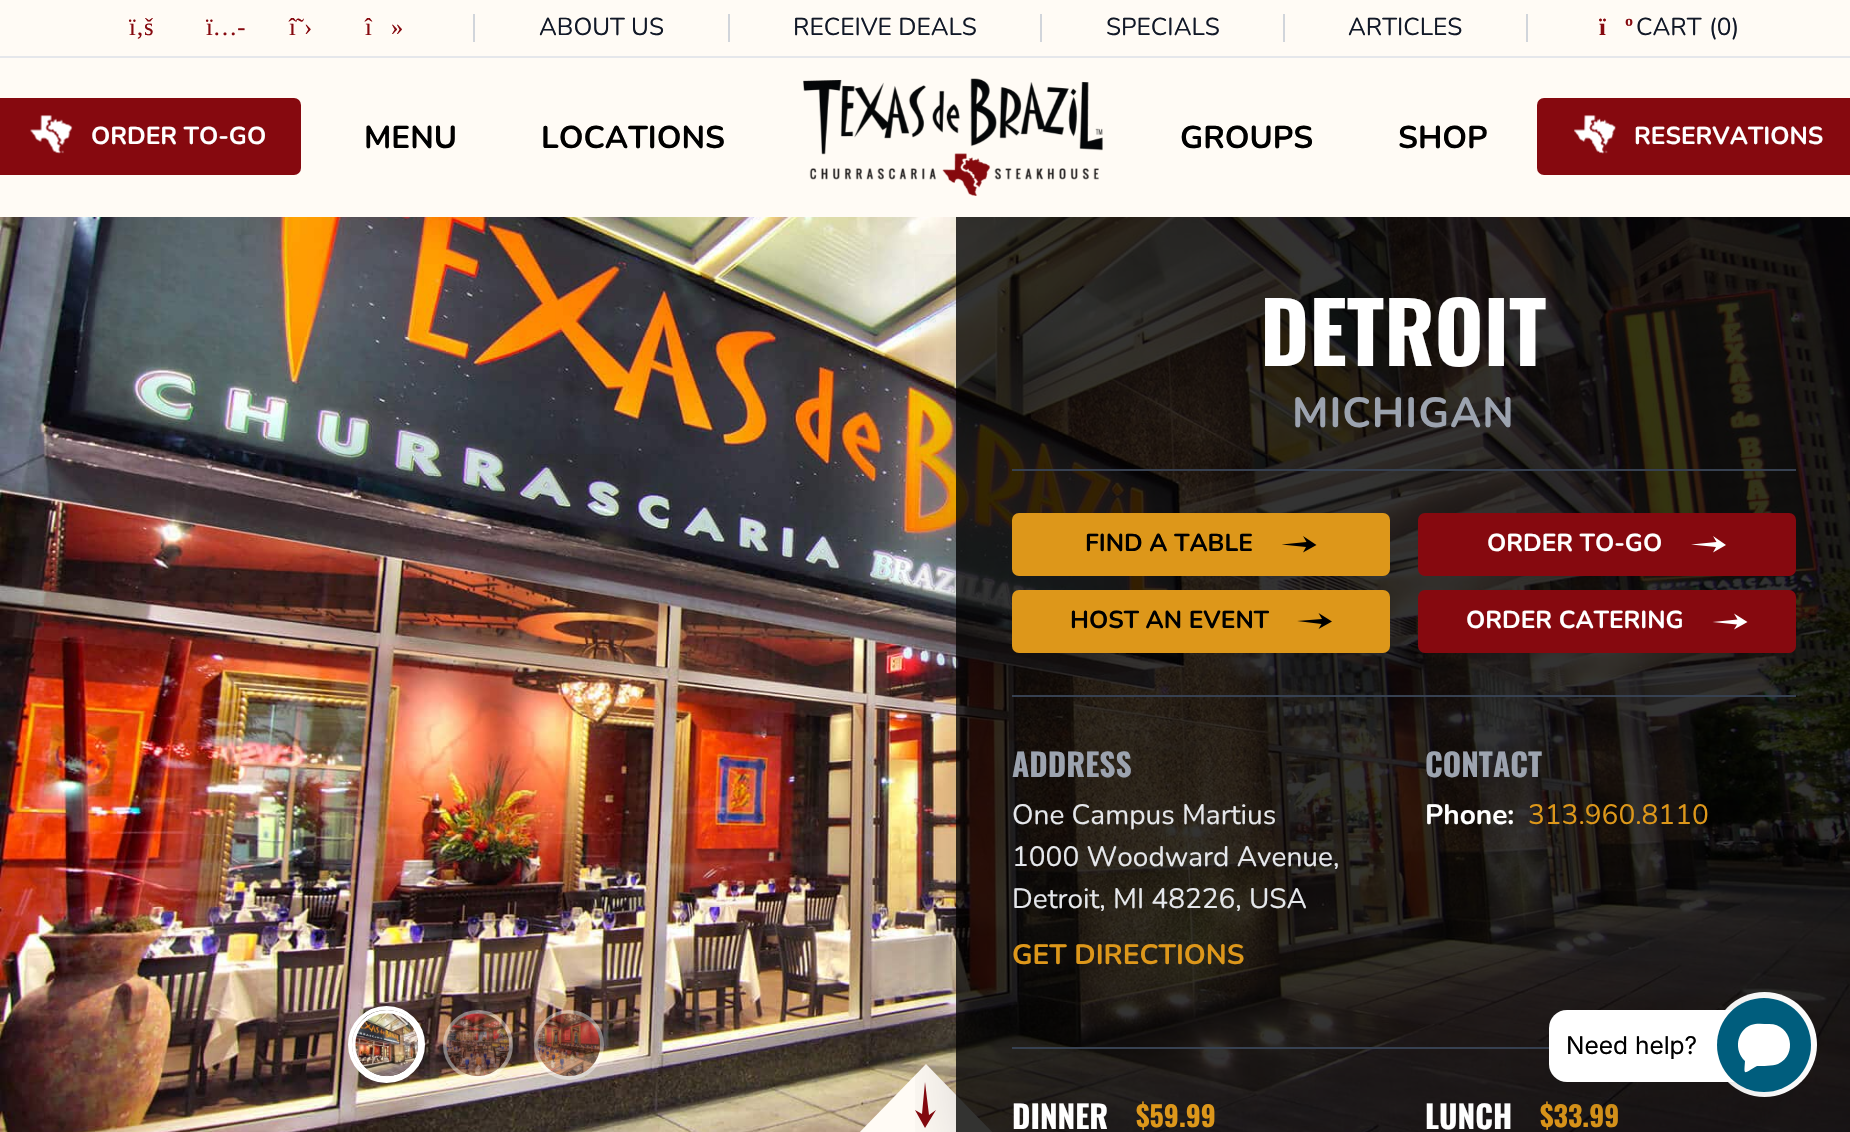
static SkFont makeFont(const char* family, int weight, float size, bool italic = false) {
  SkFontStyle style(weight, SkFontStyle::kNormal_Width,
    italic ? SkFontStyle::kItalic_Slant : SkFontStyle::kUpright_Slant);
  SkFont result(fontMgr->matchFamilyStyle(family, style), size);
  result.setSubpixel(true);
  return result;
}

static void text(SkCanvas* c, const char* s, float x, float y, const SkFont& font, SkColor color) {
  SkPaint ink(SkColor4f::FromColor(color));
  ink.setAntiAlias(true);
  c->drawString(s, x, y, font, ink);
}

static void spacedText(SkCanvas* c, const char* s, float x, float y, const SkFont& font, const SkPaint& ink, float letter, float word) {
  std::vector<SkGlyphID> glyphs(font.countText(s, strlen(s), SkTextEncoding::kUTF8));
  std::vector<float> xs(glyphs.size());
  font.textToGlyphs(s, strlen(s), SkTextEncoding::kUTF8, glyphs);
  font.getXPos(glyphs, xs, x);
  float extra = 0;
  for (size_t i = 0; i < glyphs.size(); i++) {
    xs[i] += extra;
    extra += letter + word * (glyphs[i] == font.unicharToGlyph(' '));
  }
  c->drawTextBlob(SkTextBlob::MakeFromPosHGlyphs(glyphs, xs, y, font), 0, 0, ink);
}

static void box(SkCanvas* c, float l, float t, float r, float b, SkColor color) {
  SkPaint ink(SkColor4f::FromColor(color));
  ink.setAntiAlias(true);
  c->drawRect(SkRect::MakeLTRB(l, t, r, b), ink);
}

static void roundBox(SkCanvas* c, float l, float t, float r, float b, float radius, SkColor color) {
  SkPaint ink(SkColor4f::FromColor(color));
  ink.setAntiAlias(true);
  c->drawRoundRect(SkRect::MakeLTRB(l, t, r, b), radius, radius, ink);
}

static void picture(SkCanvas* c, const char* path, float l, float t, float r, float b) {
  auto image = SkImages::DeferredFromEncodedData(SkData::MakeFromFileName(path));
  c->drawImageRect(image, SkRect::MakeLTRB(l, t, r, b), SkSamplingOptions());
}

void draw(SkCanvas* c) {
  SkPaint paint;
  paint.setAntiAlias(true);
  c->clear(0xffffffff);
  picture(c, "img_04.png", 0, 217, 1850, 1132);
  paint.setColor(0xfffffbf5);
  c->drawPath(SkPathBuilder().moveTo(996, 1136).lineTo(856, 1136).lineTo(926, 1064).close().detach(), paint);
  paint.setColor(0xff86090f);
  c->drawPath(SkPathBuilder().moveTo(922, 1114).lineTo(915, 1110).lineTo(925, 1128).lineTo(936, 1110).lineTo(929, 1115).lineTo(925, 1082).close().detach(), paint);
  c->save();
  c->clipRect(SkRect::MakeLTRB(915, 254, 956, 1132));
  paint.setColor(0x40000000);
  paint.setMaskFilter(SkMaskFilter::MakeBlur(kNormal_SkBlurStyle, 44));
  c->drawRect(SkRect::MakeLTRB(977, 282, 1831, 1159), paint);
  paint.setMaskFilter(nullptr);
  c->restore();
  box(c, 0, 0, 1850, 217, 0xfffffbf5);
  box(c, 0, 56, 1850, 58, 0xffe5e7eb);
  SkFont face1 = makeFont("Liberation Serif", 400, 24.5f);
  text(c, "ï‚š", 129, 35, face1, 0xff86090f);
  text(c, "ï…-", 206, 35, face1, 0xff86090f);
  text(c, "î˜›", 289, 35, face1, 0xff86090f);
  text(c, "î", 365, 35, face1, 0xff86090f);
  text(c, "»", 391, 35, face1, 0xff86090f);
  box(c, 473, 14, 475, 42, 0xffd1d5db);
  SkFont face2 = makeFont("Nunito", 400, 24.5f);
  text(c, "ABOUT US", 539, 35, face2, 0xff111827);
  box(c, 728, 14, 730, 42, 0xffd1d5db);
  text(c, "RECEIVE DEALS", 793, 35, face2, 0xff111827);
  box(c, 1040, 14, 1042, 42, 0xffd1d5db);
  text(c, "SPECIALS", 1106, 35, face2, 0xff111827);
  box(c, 1283, 14, 1285, 42, 0xffd1d5db);
  text(c, "ARTICLES", 1348, 35, face2, 0xff111827);
  box(c, 1526, 14, 1528, 42, 0xffd1d5db);
  SkFont face3 = makeFont("Liberation Serif", 700, 24.5f);
  text(c, "ï", 1599, 35, face3, 0xff86090f);
  text(c, "º", 1625, 35, face3, 0xff86090f);
  text(c, "CART", 1636, 35, face2, 0xff111827);
  text(c, "(0)", 1709, 35, face2, 0xff111827);
  roundBox(c, -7, 98, 301, 175, 7, 0xff86090f);
  picture(c, "img_01.png", 30, 115, 73, 154);
  SkFont face4 = makeFont("Nunito", 700, 24.5f);
  text(c, "ORDER TO-GO", 91, 144, face4, 0xffffffff);
  roundBox(c, 1537, 98, 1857, 175, 7, 0xff86090f);
  picture(c, "img_02.png", 1574, 115, 1616, 154);
  text(c, "RESERVATIONS", 1634, 144, face4, 0xffffffff);
  SkFont face5 = makeFont("Nunito", 700, 31.5f);
  text(c, "MENU", 364, 148, face5, 0xff000000);
  text(c, "LOCATIONS", 541, 148, face5, 0xff000000);
  picture(c, "img_03.png", 803, 78, 1103, 196);
  text(c, "GROUPS", 1180, 148, face5, 0xff000000);
  text(c, "SHOP", 1398, 148, face5, 0xff000000);
  paint.setStyle(SkPaint::kStroke_Style);
  paint.setStrokeWidth(4);
  paint.setColor(0xffffffff);
  c->drawCircle(386.5f, 1044.5f, 36.5f, paint);
  c->drawCircle(387, 1045, 33, paint);
  picture(c, "img_05.png", 355, 1013, 419, 1077);
  paint.setColor(0x6bffffff);
  c->drawCircle(478, 1045, 33, paint);
  picture(c, "img_06.png", 446, 1013, 510, 1077);
  c->drawCircle(569, 1045, 33, paint);
  picture(c, "img_07.png", 537, 1013, 600, 1077);
  box(c, 956, 217, 1850, 1132, 0xcc000000);
  SkFont face6 = makeFont("Oswald", 700, 84);
  text(c, "DETROIT", 1260, 366, face6, 0xffffffff);
  SkFont face7 = makeFont("Nunito", 700, 42);
  paint.setStyle(SkPaint::kFill_Style);
  paint.setColor(0xff9ca3af);
  spacedText(c, "MICHIGAN", 1292, 427, face7, paint, 1, 0);
  box(c, 1012, 469, 1796, 471, 0xff374151);
  box(c, 1012, 695, 1796, 697, 0xff374151);
  roundBox(c, 1012, 513, 1390, 576, 7, 0xffdd971a);
  text(c, "FIND A TABLE", 1085, 551, face4, 0xff000000);
  paint.setColor(0xff000000);
  c->drawPath(SkPathBuilder().moveTo(1306, 547).lineTo(1303, 552.5f).lineTo(1316.5f, 545).lineTo(1303, 536).lineTo(1306.5f, 542).lineTo(1281.5f, 544.5f).close().detach(), paint);
  roundBox(c, 1012, 590, 1390, 653, 7, 0xffdd971a);
  text(c, "HOST AN EVENT", 1070, 628, face4, 0xff000000);
  c->drawPath(SkPathBuilder().moveTo(1321.5f, 624).lineTo(1318.5f, 629).lineTo(1332, 621.5f).lineTo(1318.5f, 613).lineTo(1322, 619).lineTo(1297, 621).close().detach(), paint);
  roundBox(c, 1418, 513, 1796, 576, 7, 0xff86090f);
  text(c, "ORDER TO-GO", 1487, 551, face4, 0xffffffff);
  paint.setColor(0xffffffff);
  c->drawPath(SkPathBuilder().moveTo(1716, 547).lineTo(1713, 552.5f).lineTo(1726, 545).lineTo(1713, 536).lineTo(1716.5f, 542).lineTo(1691, 544.5f).close().detach(), paint);
  roundBox(c, 1418, 590, 1796, 653, 7, 0xff86090f);
  text(c, "ORDER CATERING", 1466, 628, face4, 0xffffffff);
  c->drawPath(SkPathBuilder().moveTo(1737, 624.5f).lineTo(1734, 629.5f).lineTo(1747.5f, 622).lineTo(1734, 613.5f).lineTo(1737.5f, 619.5f).lineTo(1712.5f, 622).close().detach(), paint);
  box(c, 1012, 1047, 1549, 1049, 0xff374151);
  SkFont face8 = makeFont("Oswald", 700, 31.5f);
  text(c, "ADDRESS", 1012, 777, face8, 0xff9ca3af);
  SkFont face9 = makeFont("Nunito", 400, 28);
  text(c, "One Campus Martius", 1012, 824, face9, 0xffe5e7eb);
  text(c, "1000 Woodward Avenue,", 1012, 866, face9, 0xffe5e7eb);
  text(c, "Detroit, MI 48226, USA", 1012, 908, face9, 0xffe5e7eb);
  SkFont face10 = makeFont("Nunito", 700, 28);
  text(c, "GET DIRECTIONS", 1012, 964, face10, 0xffdd971a);
  text(c, "CONTACT", 1425, 777, face8, 0xff9ca3af);
  text(c, "Phone:", 1425, 824, face10, 0xffffffff);
  text(c, "313.960.8110", 1528, 824, face9, 0xffdd971a);
  text(c, "DINNER", 1012, 1129, face8, 0xffffffff);
  SkFont face11 = makeFont("Oswald", 700, 28);
  text(c, "$59.99", 1136, 1127, face11, 0xffdd971a);
  text(c, "LUNCH", 1425, 1129, face8, 0xffffffff);
  text(c, "$33.99", 1540, 1127, face11, 0xffdd971a);
  c->drawCircle(1764.5f, 1044.5f, 52.5f, paint);
  paint.setColor(0x33000000);
  paint.setMaskFilter(SkMaskFilter::MakeBlur(kNormal_SkBlurStyle, 42));
  c->drawRoundRect(SkRect::MakeLTRB(1549, 1017, 1764, 1089), 18, 18, paint);
  paint.setMaskFilter(nullptr);
  roundBox(c, 1549, 1010, 1764, 1082, 18, 0xffffffff);
  SkFont face12 = makeFont("Inter", 400, 24.5f);
  text(c, "Need help?", 1566, 1054, face12, 0xff000000);
  paint.setColor(0xff005d7d);
  c->drawCircle(1764, 1045, 47, paint);
  paint.setColor(0xffffffff);
  c->drawPath(SkPathBuilder(SkPathFillType::kEvenOdd).moveTo(1769, 1024).cubicTo(1792, 1024, 1798, 1055, 1778, 1064).cubicTo(1772, 1066, 1763, 1066, 1757, 1066).cubicTo(1743, 1074, 1744, 1076, 1745, 1061).cubicTo(1734, 1051, 1736, 1031, 1751, 1025).cubicTo(1756, 1023, 1763, 1024, 1769, 1024).close().detach(), paint);
}
